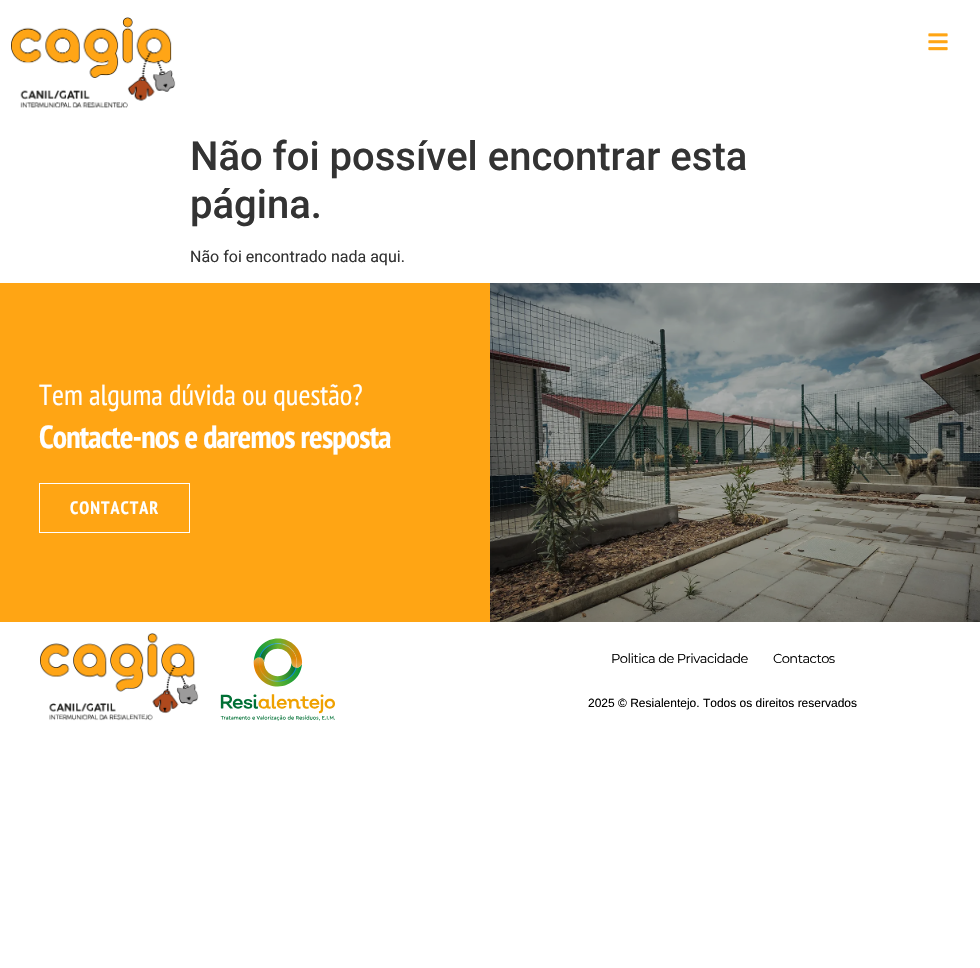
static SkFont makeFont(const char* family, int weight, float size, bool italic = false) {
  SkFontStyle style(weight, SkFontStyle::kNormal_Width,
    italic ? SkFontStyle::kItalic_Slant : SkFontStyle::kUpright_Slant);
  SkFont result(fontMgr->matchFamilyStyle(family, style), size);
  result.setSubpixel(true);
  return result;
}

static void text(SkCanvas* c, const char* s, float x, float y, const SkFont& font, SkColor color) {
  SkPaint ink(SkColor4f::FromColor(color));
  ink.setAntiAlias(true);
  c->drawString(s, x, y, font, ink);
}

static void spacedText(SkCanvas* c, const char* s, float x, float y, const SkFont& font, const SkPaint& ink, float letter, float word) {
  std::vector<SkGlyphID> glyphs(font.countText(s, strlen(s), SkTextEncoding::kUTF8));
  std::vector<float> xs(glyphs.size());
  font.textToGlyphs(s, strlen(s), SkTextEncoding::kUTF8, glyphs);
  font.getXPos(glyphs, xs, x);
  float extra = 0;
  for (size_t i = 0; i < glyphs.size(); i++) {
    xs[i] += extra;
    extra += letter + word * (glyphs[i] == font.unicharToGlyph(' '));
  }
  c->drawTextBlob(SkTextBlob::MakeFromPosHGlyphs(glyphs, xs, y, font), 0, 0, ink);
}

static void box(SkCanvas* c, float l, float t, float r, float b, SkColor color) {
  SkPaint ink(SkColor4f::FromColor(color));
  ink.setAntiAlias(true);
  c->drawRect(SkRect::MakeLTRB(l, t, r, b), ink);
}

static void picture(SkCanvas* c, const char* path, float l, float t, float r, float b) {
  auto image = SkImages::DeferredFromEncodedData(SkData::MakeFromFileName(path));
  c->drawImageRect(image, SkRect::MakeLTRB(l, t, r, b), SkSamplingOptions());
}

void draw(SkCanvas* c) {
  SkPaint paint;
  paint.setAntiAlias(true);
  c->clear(0xffffffff);
  picture(c, "img_01.png", 11, 17, 176, 108);
  picture(c, "img_02.png", 928, 33, 948, 51);
  SkFont face1 = makeFont("Roboto", 500, 40);
  text(c, "Não foi possível encontrar esta", 190, 170, face1, 0xff333333);
  text(c, "página.", 190, 218, face1, 0xff333333);
  SkFont face2 = makeFont("Roboto", 400, 16);
  text(c, "Não foi encontrado nada aqui.", 190, 262, face2, 0xff333333);
  box(c, 0, 283, 490, 622, 0xffffa514);
  SkFont face3 = makeFont("PT Sans Narrow", 400, 29);
  text(c, "Tem alguma dúvida ou questão?", 39, 405, face3, 0xffffffff);
  SkFont face4 = makeFont("PT Sans Narrow", 700, 32);
  paint.setColor(0xffffffff);
  spacedText(c, "Contacte-nos e daremos resposta", 39, 448, face4, paint, -0.8f, 0);
  paint.setStyle(SkPaint::kStroke_Style);
  paint.setStrokeWidth(1);
  c->drawRect(SkRect::MakeLTRB(39.5f, 483.5f, 189.5f, 532.5f), paint);
  SkFont face5 = makeFont("PT Sans Narrow", 700, 18);
  paint.setStyle(SkPaint::kFill_Style);
  spacedText(c, "CONTACTAR", 70, 514, face5, paint, 1, 0);
  picture(c, "img_03.png", 490, 283, 980, 622);
  picture(c, "img_04.png", 40, 633, 199, 721);
  picture(c, "img_05.png", 220, 638, 335, 721);
  SkFont face6 = makeFont("Montserrat", 400, 13);
  paint.setColor(0xff000000);
  spacedText(c, "Politica de Privacidade", 611, 663, face6, paint, -0.5f, 0);
  spacedText(c, "Contactos", 773, 663, face6, paint, -0.5f, 0);
  SkFont face7 = makeFont("Liberation Sans", 400, 12);
  text(c, "2025 © Resialentejo. Todos os direitos reservados", 588, 707, face7, 0xff000000);
}
